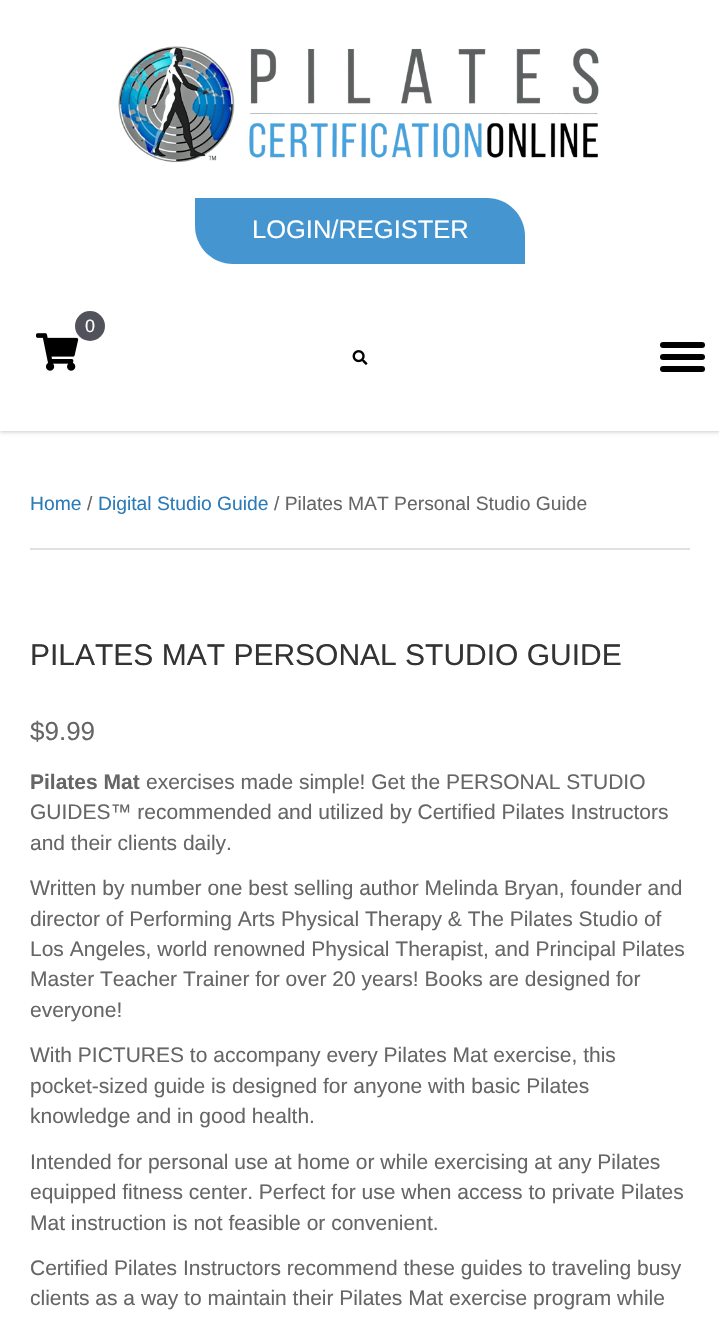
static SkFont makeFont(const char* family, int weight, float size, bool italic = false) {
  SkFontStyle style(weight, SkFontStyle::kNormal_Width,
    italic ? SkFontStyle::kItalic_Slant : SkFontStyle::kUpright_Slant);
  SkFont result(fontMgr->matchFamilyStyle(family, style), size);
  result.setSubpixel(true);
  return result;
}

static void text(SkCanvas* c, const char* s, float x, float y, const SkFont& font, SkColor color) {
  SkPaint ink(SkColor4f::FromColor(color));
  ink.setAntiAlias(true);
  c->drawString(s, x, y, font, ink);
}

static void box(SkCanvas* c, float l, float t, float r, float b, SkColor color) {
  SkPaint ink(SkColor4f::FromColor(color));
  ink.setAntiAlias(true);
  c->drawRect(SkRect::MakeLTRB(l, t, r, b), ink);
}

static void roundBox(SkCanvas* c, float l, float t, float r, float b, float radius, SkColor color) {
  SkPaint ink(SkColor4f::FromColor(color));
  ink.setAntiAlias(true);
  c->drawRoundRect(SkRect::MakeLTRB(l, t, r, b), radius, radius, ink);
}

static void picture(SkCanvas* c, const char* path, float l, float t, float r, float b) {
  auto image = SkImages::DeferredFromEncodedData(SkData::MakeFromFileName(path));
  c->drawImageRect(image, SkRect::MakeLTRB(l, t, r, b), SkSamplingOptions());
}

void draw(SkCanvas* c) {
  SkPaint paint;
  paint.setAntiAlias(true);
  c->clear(0xffffffff);
  paint.setColor(0xffcccccc);
  paint.setMaskFilter(SkMaskFilter::MakeBlur(kNormal_SkBlurStyle, 2));
  c->drawRect(SkRect::MakeLTRB(0, 2, 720, 432), paint);
  paint.setMaskFilter(nullptr);
  box(c, 0, 0, 719, 431, 0xffffffff);
  picture(c, "img_01.png", 118, 46, 599, 163);
  paint.setColor(0xff4596d0);
  c->drawPath(SkPathBuilder().moveTo(195, 198).lineTo(487, 198).cubicTo(508, 198, 525, 215, 525, 236).lineTo(525, 264).lineTo(233, 264).cubicTo(212, 264, 195, 247, 195, 226).close().detach(), paint);
  SkFont face1 = makeFont("Liberation Sans", 400, 25.5f);
  text(c, "LOGIN/REGISTER", 252, 238, face1, 0xffffffff);
  picture(c, "img_02.png", 36, 333, 79, 371);
  paint.setColor(0xff52525d);
  c->drawCircle(90, 326, 15, paint);
  SkFont face2 = makeFont("Liberation Sans", 400, 18);
  text(c, "0", 85, 332, face2, 0xffffffff);
  picture(c, "img_03.png", 352, 350, 368, 365);
  roundBox(c, 660, 354, 705, 360, 3, 0xff000000);
  roundBox(c, 660, 342, 705, 348, 3, 0xff000000);
  roundBox(c, 660, 366, 705, 372, 3, 0xff000000);
  SkFont face3 = makeFont("Liberation Sans", 400, 19.3f);
  text(c, "Home", 30, 510, face3, 0xff2b7bb9);
  text(c, "/", 87, 510, face3, 0xff666666);
  text(c, "Digital Studio Guide", 98, 510, face3, 0xff2b7bb9);
  text(c, "/ Pilates MAT Personal Studio Guide", 274, 510, face3, 0xff666666);
  box(c, 30, 548, 690, 550, 0xffe0e0e0);
  SkFont face4 = makeFont("Liberation Sans", 400, 30);
  text(c, "PILATES MAT PERSONAL STUDIO GUIDE", 30, 665, face4, 0xff333333);
  SkFont face5 = makeFont("Liberation Sans", 400, 26);
  text(c, "$9.99", 30, 740, face5, 0xff666666);
  SkFont face6 = makeFont("Liberation Sans", 700, 21);
  text(c, "Pilates Mat", 30, 789, face6, 0xff666666);
  SkFont face7 = makeFont("Liberation Sans", 400, 21);
  text(c, "exercises made simple! Get the PERSONAL STUDIO", 146, 789, face7, 0xff666666);
  text(c, "GUIDES™ recommended and utilized by Certified Pilates Instructors", 30, 819, face7, 0xff666666);
  text(c, "and their clients daily.", 30, 850, face7, 0xff666666);
  text(c, "Written by number one best selling author Melinda Bryan, founder and", 30, 895, face7, 0xff666666);
  text(c, "director of Performing Arts Physical Therapy & The Pilates Studio of", 30, 926, face7, 0xff666666);
  text(c, "Los Angeles, world renowned Physical Therapist, and Principal Pilates", 30, 956, face7, 0xff666666);
  text(c, "Master Teacher Trainer for over 20 years! Books are designed for", 30, 986, face7, 0xff666666);
  text(c, "everyone!", 30, 1017, face7, 0xff666666);
  text(c, "With PICTURES to accompany every Pilates Mat exercise, this", 30, 1062, face7, 0xff666666);
  text(c, "pocket-sized guide is designed for anyone with basic Pilates", 30, 1093, face7, 0xff666666);
  text(c, "knowledge and in good health.", 30, 1123, face7, 0xff666666);
  text(c, "Intended for personal use at home or while exercising at any Pilates", 30, 1169, face7, 0xff666666);
  text(c, "equipped fitness center. Perfect for use when access to private Pilates", 30, 1199, face7, 0xff666666);
  text(c, "Mat instruction is not feasible or convenient.", 30, 1230, face7, 0xff666666);
  text(c, "Certified Pilates Instructors recommend these guides to traveling busy", 30, 1275, face7, 0xff666666);
  text(c, "clients as a way to maintain their Pilates Mat exercise program while", 30, 1305, face7, 0xff666666);
}
